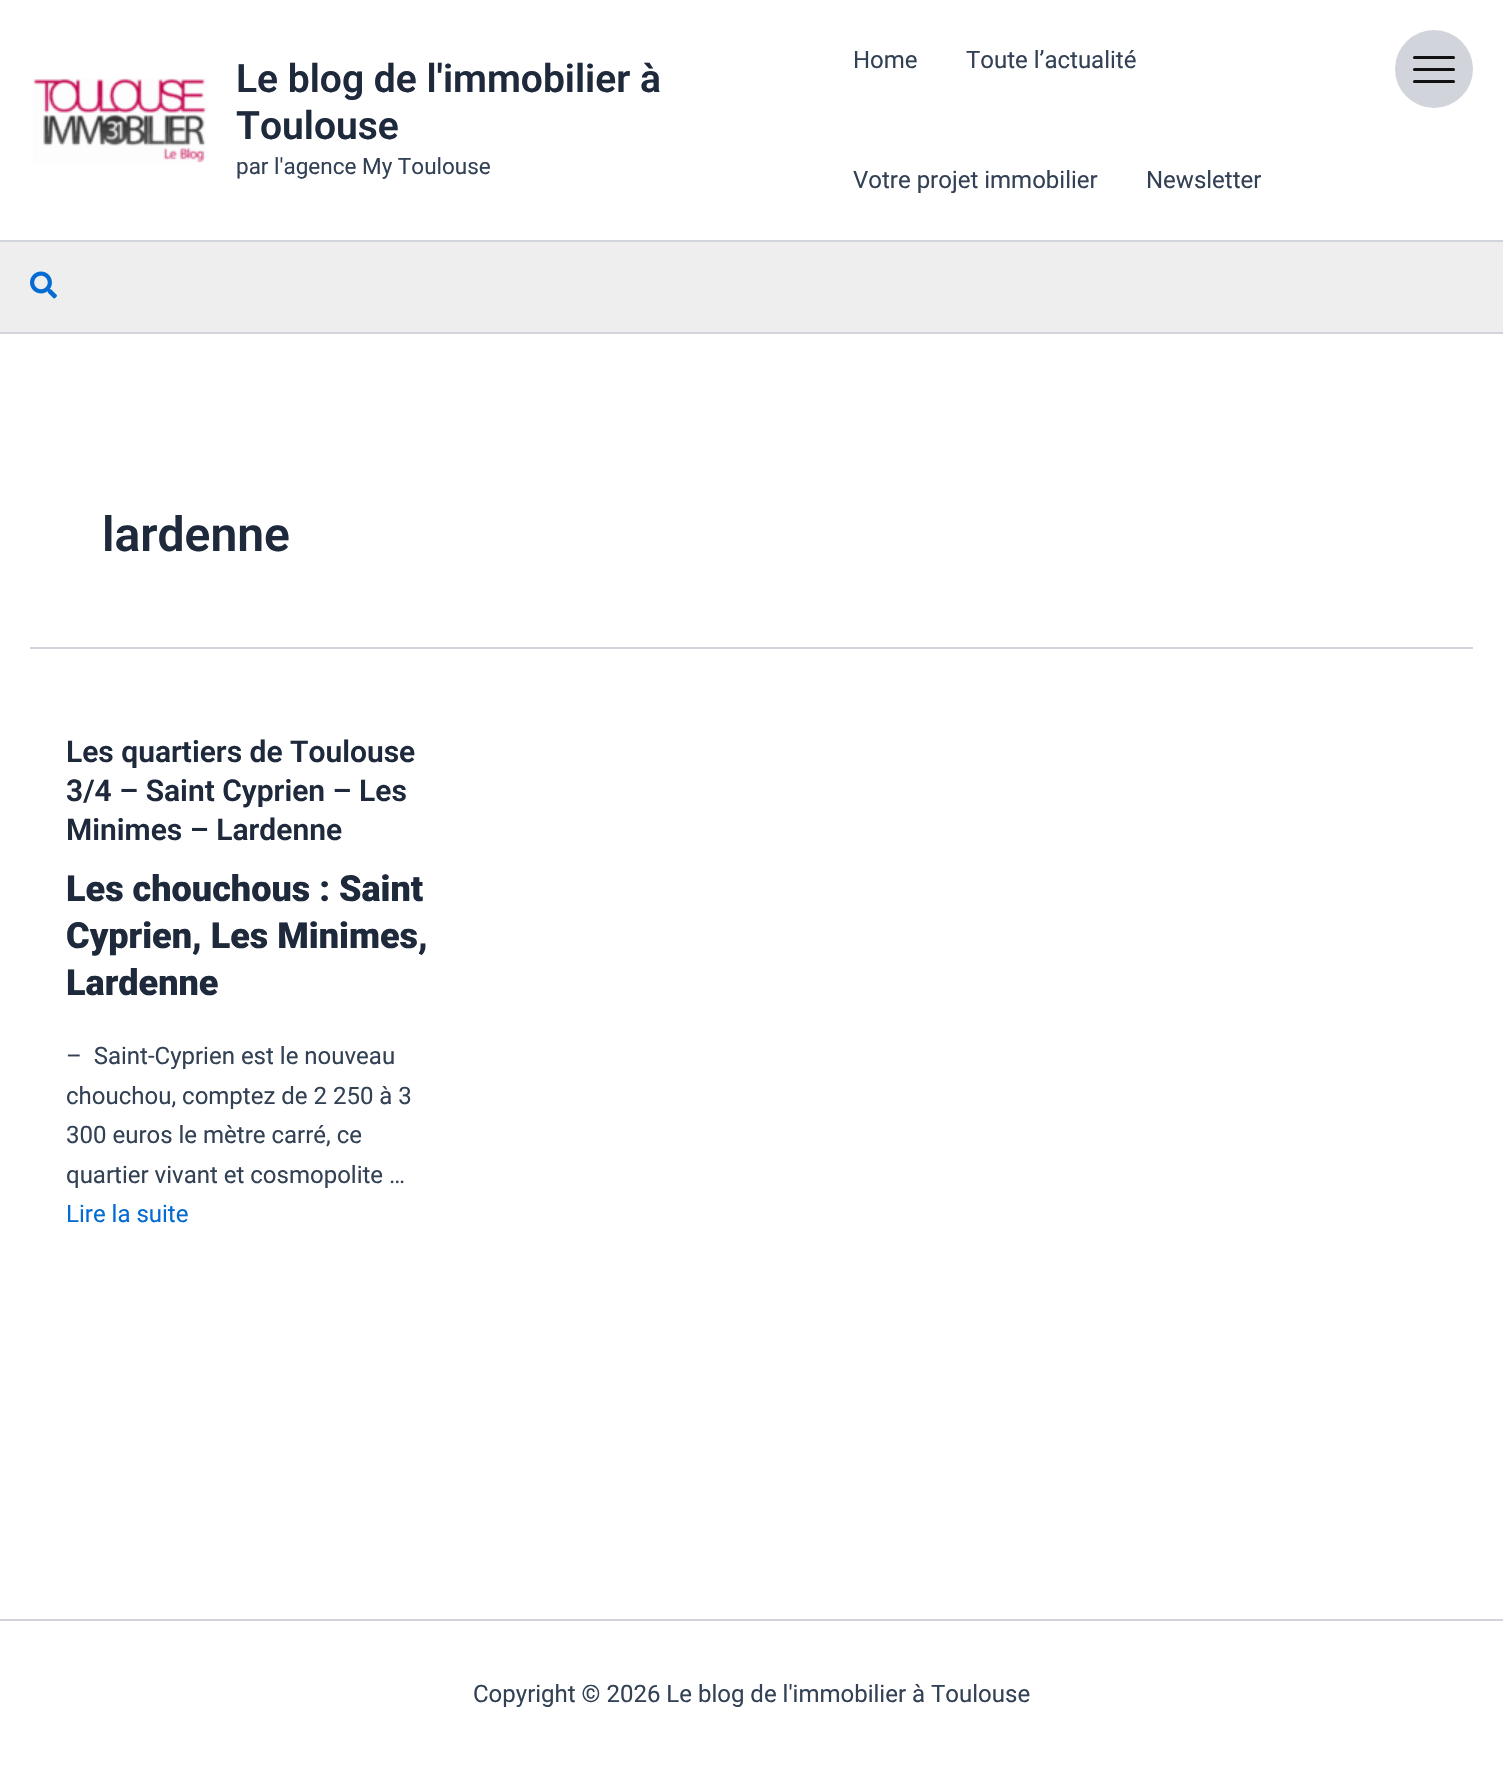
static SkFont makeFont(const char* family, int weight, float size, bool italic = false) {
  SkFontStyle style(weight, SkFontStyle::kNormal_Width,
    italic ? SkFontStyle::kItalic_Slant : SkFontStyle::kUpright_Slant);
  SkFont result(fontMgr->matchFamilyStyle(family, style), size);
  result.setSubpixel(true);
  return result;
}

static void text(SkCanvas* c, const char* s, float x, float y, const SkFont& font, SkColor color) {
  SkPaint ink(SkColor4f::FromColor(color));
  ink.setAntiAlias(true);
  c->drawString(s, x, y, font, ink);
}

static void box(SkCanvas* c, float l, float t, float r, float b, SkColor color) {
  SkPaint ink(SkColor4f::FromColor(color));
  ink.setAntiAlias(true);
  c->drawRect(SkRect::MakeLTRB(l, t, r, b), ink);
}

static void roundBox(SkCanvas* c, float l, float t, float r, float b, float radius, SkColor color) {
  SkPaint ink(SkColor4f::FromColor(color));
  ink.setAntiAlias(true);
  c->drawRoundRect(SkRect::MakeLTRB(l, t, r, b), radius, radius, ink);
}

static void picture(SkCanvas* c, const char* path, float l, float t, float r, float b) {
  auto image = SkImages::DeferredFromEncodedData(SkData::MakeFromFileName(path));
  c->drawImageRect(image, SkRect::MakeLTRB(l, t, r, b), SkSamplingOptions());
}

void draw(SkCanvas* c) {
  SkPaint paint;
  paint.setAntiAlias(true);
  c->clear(0xffffffff);
  box(c, 0, 240, 1503, 242, 0xffd1d5db);
  picture(c, "img_01.png", 33, 78, 206, 163);
  SkFont face1 = makeFont("Roboto", 600, 39);
  text(c, "Le blog de l'immobilier à", 236, 92, face1, 0xff1e293b);
  text(c, "Toulouse", 236, 139, face1, 0xff1e293b);
  SkFont face2 = makeFont("Roboto", 400, 22.5f);
  text(c, "par l'agence My Toulouse", 236, 174, face2, 0xff334155);
  SkFont face3 = makeFont("Roboto", 400, 24);
  text(c, "Home", 853, 68, face3, 0xff334155);
  text(c, "Toute l’actualité", 966, 68, face3, 0xff334155);
  text(c, "Votre projet immobilier", 853, 188, face3, 0xff334155);
  text(c, "Newsletter", 1146, 188, face3, 0xff334155);
  box(c, 0, 242, 1503, 332, 0xffeeeeee);
  box(c, 0, 332, 1503, 334, 0xffd1d5db);
  picture(c, "img_02.png", 30, 271, 57, 299);
  box(c, 30, 647, 1473, 649, 0xffd1d5db);
  SkFont face4 = makeFont("Roboto", 600, 48);
  text(c, "lardenne", 102, 551, face4, 0xff1e293b);
  SkFont face5 = makeFont("Roboto", 600, 30);
  text(c, "Les quartiers de Toulouse", 66, 762, face5, 0xff1e293b);
  text(c, "3/4 – Saint Cyprien – Les", 66, 801, face5, 0xff1e293b);
  text(c, "Minimes – Lardenne", 66, 840, face5, 0xff1e293b);
  SkFont face6 = makeFont("Roboto", 900, 36);
  text(c, "Les chouchous : Saint", 66, 901, face6, 0xff1e293b);
  text(c, "Cyprien, Les Minimes,", 66, 948, face6, 0xff1e293b);
  text(c, "Lardenne", 66, 995, face6, 0xff1e293b);
  text(c, "–  Saint-Cyprien est le nouveau", 66, 1064, face3, 0xff334155);
  text(c, "chouchou, comptez de 2 250 à 3", 66, 1104, face3, 0xff334155);
  text(c, "300 euros le mètre carré, ce", 66, 1143, face3, 0xff334155);
  text(c, "quartier vivant et cosmopolite …", 66, 1183, face3, 0xff334155);
  text(c, "Lire la suite", 66, 1222, face3, 0xff046bd2);
  box(c, 0, 1619, 1503, 1621, 0xffd1d5db);
  text(c, "Copyright © 2026 Le blog de l'immobilier à Toulouse", 473, 1702, face3, 0xff334155);
  paint.setColor(0xffd1d5db);
  c->drawCircle(1434, 69, 39, paint);
  roundBox(c, 1413, 68, 1455, 71, 1.5f, 0xff111111);
  roundBox(c, 1413, 56, 1455, 59, 1.5f, 0xff111111);
  roundBox(c, 1413, 80, 1455, 83, 1.5f, 0xff111111);
}
